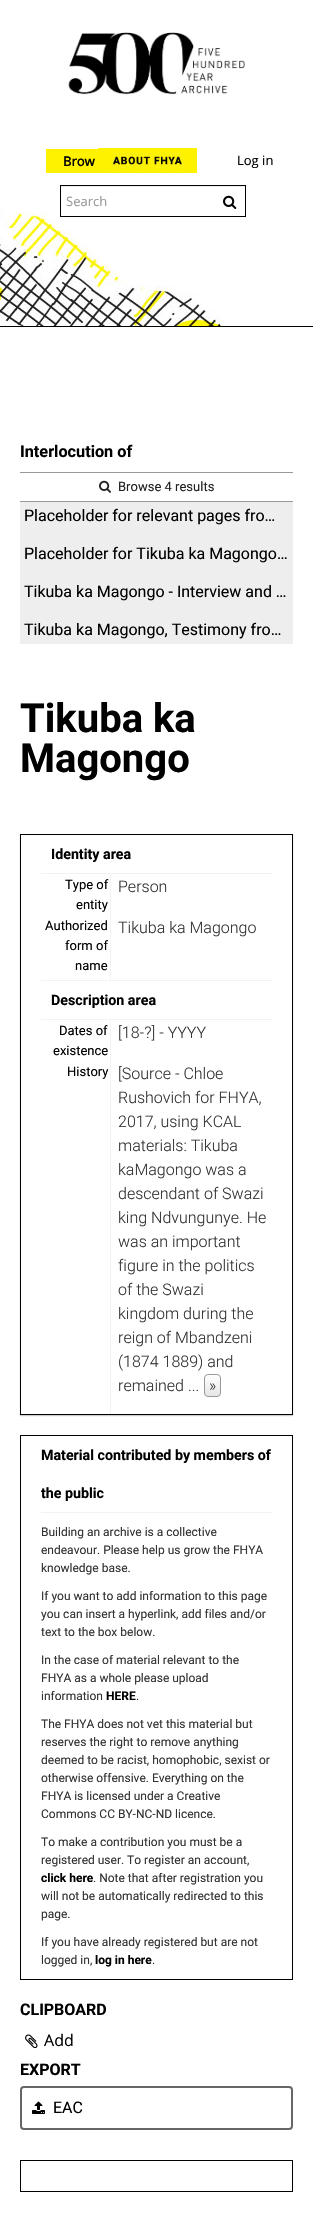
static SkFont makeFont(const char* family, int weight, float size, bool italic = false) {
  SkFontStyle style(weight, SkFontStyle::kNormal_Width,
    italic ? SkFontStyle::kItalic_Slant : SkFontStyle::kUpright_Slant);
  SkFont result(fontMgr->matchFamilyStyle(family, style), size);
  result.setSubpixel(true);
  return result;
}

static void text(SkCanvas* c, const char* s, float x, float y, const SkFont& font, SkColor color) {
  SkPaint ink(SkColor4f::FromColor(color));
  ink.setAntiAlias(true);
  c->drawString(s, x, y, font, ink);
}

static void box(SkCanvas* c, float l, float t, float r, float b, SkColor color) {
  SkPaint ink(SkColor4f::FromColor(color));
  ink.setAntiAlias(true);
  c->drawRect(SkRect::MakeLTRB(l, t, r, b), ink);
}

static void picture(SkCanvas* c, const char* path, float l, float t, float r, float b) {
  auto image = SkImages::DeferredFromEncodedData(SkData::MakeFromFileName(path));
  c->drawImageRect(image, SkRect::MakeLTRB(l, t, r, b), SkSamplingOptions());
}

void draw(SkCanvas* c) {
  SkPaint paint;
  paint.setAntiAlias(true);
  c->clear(0xffffffff);
  picture(c, "img_01.png", 0, 207, 227, 326);
  picture(c, "img_02.png", 68, 32, 245, 95);
  box(c, 46, 149, 98, 173, 0xfffff200);
  SkFont face1 = makeFont("Open Sans", 700, 13);
  text(c, "Brow", 63, 166, face1, 0xff000000);
  box(c, 61, 186, 245, 187, 0xffececec);
  paint.setStyle(SkPaint::kStroke_Style);
  paint.setStrokeWidth(1);
  paint.setColor(0xff000000);
  c->drawRect(SkRect::MakeLTRB(60.5f, 185.5f, 245.5f, 216.5f), paint);
  SkFont face2 = makeFont("Open Sans", 400, 13);
  text(c, "Search", 66, 206, face2, 0xff999999);
  picture(c, "img_03.png", 223, 195, 237, 209);
  picture(c, "img_04.png", 98, 148, 197, 173);
  text(c, "Log in", 237, 165, face2, 0xff000000);
  box(c, 0, 326, 313, 327, 0xff000000);
  SkFont face3 = makeFont("Roboto", 700, 16.25f);
  text(c, "Interlocution of", 20, 457, face3, 0xff000000);
  box(c, 20, 472, 293, 473, 0xff999999);
  picture(c, "img_05.png", 99, 480, 111, 493);
  SkFont face4 = makeFont("Roboto", 400, 13);
  text(c, "Browse 4 results", 118, 491, face4, 0xff222222);
  box(c, 20, 502, 293, 644, 0xffeeeeee);
  box(c, 20, 501, 293, 502, 0xff999999);
  SkFont face5 = makeFont("Roboto", 400, 16);
  text(c, "Placeholder for relevant pages fro…", 24, 521, face5, 0xff000000);
  text(c, "Placeholder for Tikuba ka Magongo…", 24, 559, face5, 0xff000000);
  text(c, "Tikuba ka Magongo - Interview and …", 24, 597, face5, 0xff000000);
  text(c, "Tikuba ka Magongo, Testimony fro…", 24, 635, face5, 0xff000000);
  SkFont face6 = makeFont("Roboto", 700, 40);
  text(c, "Tikuba ka", 20, 732, face6, 0xff000000);
  text(c, "Magongo", 20, 772, face6, 0xff000000);
  c->save();
  c->clipPath(SkPathBuilder(SkPathFillType::kEvenOdd).moveTo(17, 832).lineTo(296, 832).lineTo(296, 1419).lineTo(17, 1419).close().moveTo(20, 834).lineTo(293, 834).lineTo(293, 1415).lineTo(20, 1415).close().detach(), true);
  paint.setStyle(SkPaint::kFill_Style);
  paint.setColor(0x33000000);
  paint.setMaskFilter(SkMaskFilter::MakeBlur(kNormal_SkBlurStyle, 0.5f));
  c->drawRect(SkRect::MakeLTRB(20, 835, 293, 1416), paint);
  paint.setMaskFilter(nullptr);
  c->restore();
  paint.setStyle(SkPaint::kStroke_Style);
  paint.setColor(0xff000000);
  c->drawRect(SkRect::MakeLTRB(20.5f, 834.5f, 292.5f, 1414.5f), paint);
  box(c, 41, 873, 272, 874, 0xfff2f2f2);
  SkFont face7 = makeFont("Roboto", 700, 14.25f);
  text(c, "Identity area", 51, 859, face7, 0xff000000);
  box(c, 110, 874, 111, 980, 0xfff2f2f2);
  text(c, "Type of", 65, 889, face4, 0xff000000);
  text(c, "entity", 76, 909, face4, 0xff000000);
  SkFont face8 = makeFont("Roboto", 300, 16);
  text(c, "Person", 118, 892, face8, 0xff333333);
  text(c, "Authorized", 45, 930, face4, 0xff000000);
  text(c, "form of", 65, 950, face4, 0xff000000);
  text(c, "name", 75, 970, face4, 0xff000000);
  text(c, "Tikuba ka Magongo", 118, 933, face8, 0xff333333);
  box(c, 41, 980, 272, 981, 0xfff2f2f2);
  box(c, 41, 1019, 272, 1020, 0xfff2f2f2);
  text(c, "Description area", 51, 1005, face7, 0xff000000);
  box(c, 110, 1020, 111, 1414, 0xfff2f2f2);
  text(c, "Dates of", 59, 1035, face4, 0xff000000);
  text(c, "existence", 53, 1055, face4, 0xff000000);
  text(c, "[18-?] - YYYY", 118, 1038, face8, 0xff333333);
  text(c, "History", 67, 1076, face4, 0xff000000);
  text(c, "[Source - Chloe", 118, 1079, face8, 0xff333333);
  text(c, "Rushovich for FHYA,", 118, 1103, face8, 0xff333333);
  text(c, "2017, using KCAL", 118, 1127, face8, 0xff333333);
  text(c, "materials: Tikuba", 118, 1151, face8, 0xff333333);
  text(c, "kaMagongo was a", 118, 1175, face8, 0xff333333);
  text(c, "descendant of Swazi", 118, 1199, face8, 0xff333333);
  text(c, "king Ndvungunye. He", 118, 1223, face8, 0xff333333);
  text(c, "was an important", 118, 1247, face8, 0xff333333);
  text(c, "figure in the politics", 118, 1271, face8, 0xff333333);
  text(c, "of the Swazi", 118, 1295, face8, 0xff333333);
  text(c, "kingdom during the", 118, 1319, face8, 0xff333333);
  text(c, "reign of Mbandzeni", 118, 1343, face8, 0xff333333);
  text(c, "(1874 1889) and", 118, 1367, face8, 0xff333333);
  text(c, "remained ...", 118, 1391, face8, 0xff333333);
  c->save();
  c->clipPath(SkPathBuilder().moveTo(208, 1374).lineTo(217, 1374).cubicTo(219, 1374, 221, 1376, 221, 1378).lineTo(221, 1393).cubicTo(221, 1395, 219, 1397, 217, 1397).lineTo(208, 1397).cubicTo(206, 1397, 204, 1395, 204, 1393).lineTo(204, 1378).cubicTo(204, 1376, 206, 1374, 208, 1374).close().detach(), true);
  paint.setStyle(SkPaint::kFill_Style);
  {
    const SkColor colors[] = {0xffffffff, 0xffe6e6e6};
    const float stops[] = {0, 1};
    const SkPoint ends[] = {{213, 1375}, {213, 1396}};
    paint.setShader(SkGradientShader::MakeLinear(ends, colors, stops, 2, SkTileMode::kClamp));
    paint.setAlpha(255);
  }
  c->drawRect(SkRect::MakeLTRB(204, 1375, 221, 1396), paint);
  c->restore();
  paint.setStyle(SkPaint::kStroke_Style);
  paint.setShader(nullptr);
  paint.setColor(0xff999999);
  c->drawRoundRect(SkRect::MakeLTRB(204.5f, 1374.5f, 220.5f, 1396.5f), 3.5f, 3.5f, paint);
  text(c, "»", 209, 1391, face8, 0xff333333);
  paint.setColor(0xff000000);
  c->drawRect(SkRect::MakeLTRB(20.5f, 1435.5f, 292.5f, 1979.5f), paint);
  box(c, 41, 1512, 272, 1513, 0xfff2f2f2);
  text(c, "Material contributed by members of", 41, 1460, face7, 0xff000000);
  text(c, "the public", 41, 1498, face7, 0xff000000);
  SkFont face9 = makeFont("Roboto", 400, 12);
  text(c, "Building an archive is a collective", 41, 1536, face9, 0xff333333);
  text(c, "endeavour. Please help us grow the FHYA", 41, 1554, face9, 0xff333333);
  text(c, "knowledge base.", 41, 1572, face9, 0xff333333);
  text(c, "If you want to add information to this page", 41, 1600, face9, 0xff333333);
  text(c, "you can insert a hyperlink, add files and/or", 41, 1618, face9, 0xff333333);
  text(c, "text to the box below.", 41, 1636, face9, 0xff333333);
  text(c, "In the case of material relevant to the", 41, 1664, face9, 0xff333333);
  text(c, "FHYA as a whole please upload", 41, 1682, face9, 0xff333333);
  text(c, "information", 41, 1700, face9, 0xff333333);
  SkFont face10 = makeFont("Roboto", 700, 12);
  text(c, "HERE", 106, 1700, face10, 0xff000000);
  text(c, ".", 136, 1700, face9, 0xff333333);
  text(c, "The FHYA does not vet this material but", 41, 1728, face9, 0xff333333);
  text(c, "reserves the right to remove anything", 41, 1746, face9, 0xff333333);
  text(c, "deemed to be racist, homophobic, sexist or", 41, 1764, face9, 0xff333333);
  text(c, "otherwise offensive. Everything on the", 41, 1782, face9, 0xff333333);
  text(c, "FHYA is licensed under a Creative", 41, 1800, face9, 0xff333333);
  text(c, "Commons CC BY-NC-ND licence.", 41, 1818, face9, 0xff333333);
  text(c, "To make a contribution you must be a", 41, 1846, face9, 0xff333333);
  text(c, "registered user. To register an account,", 41, 1864, face9, 0xff333333);
  text(c, "click here", 41, 1882, face10, 0xff000000);
  text(c, ". Note that after registration you", 93, 1882, face9, 0xff333333);
  text(c, "will not be automatically redirected to this", 41, 1900, face9, 0xff333333);
  text(c, "page.", 41, 1918, face9, 0xff333333);
  text(c, "If you have already registered but are not", 41, 1946, face9, 0xff333333);
  text(c, "logged in,", 41, 1964, face9, 0xff333333);
  text(c, "log in here", 95, 1964, face10, 0xff000000);
  text(c, ".", 152, 1964, face9, 0xff333333);
  SkFont face11 = makeFont("Roboto", 700, 16);
  text(c, "CLIPBOARD", 20, 2015, face11, 0xff000000);
  picture(c, "img_06.png", 25, 2034, 38, 2049);
  SkFont face12 = makeFont("Open Sans", 400, 16);
  text(c, "Add", 44, 2046, face12, 0xff000000);
  text(c, "EXPORT", 20, 2075, face11, 0xff000000);
  paint.setStrokeWidth(2);
  paint.setColor(0xff666666);
  c->drawRoundRect(SkRect::MakeLTRB(21, 2087, 292, 2129), 3, 3, paint);
  picture(c, "img_07.png", 32, 2101, 45, 2114);
  text(c, "EAC", 53, 2113, face5, 0xff000000);
  paint.setStrokeWidth(1);
  paint.setColor(0xff000000);
  c->drawRect(SkRect::MakeLTRB(20.5f, 2160.5f, 292.5f, 2191.5f), paint);
}
